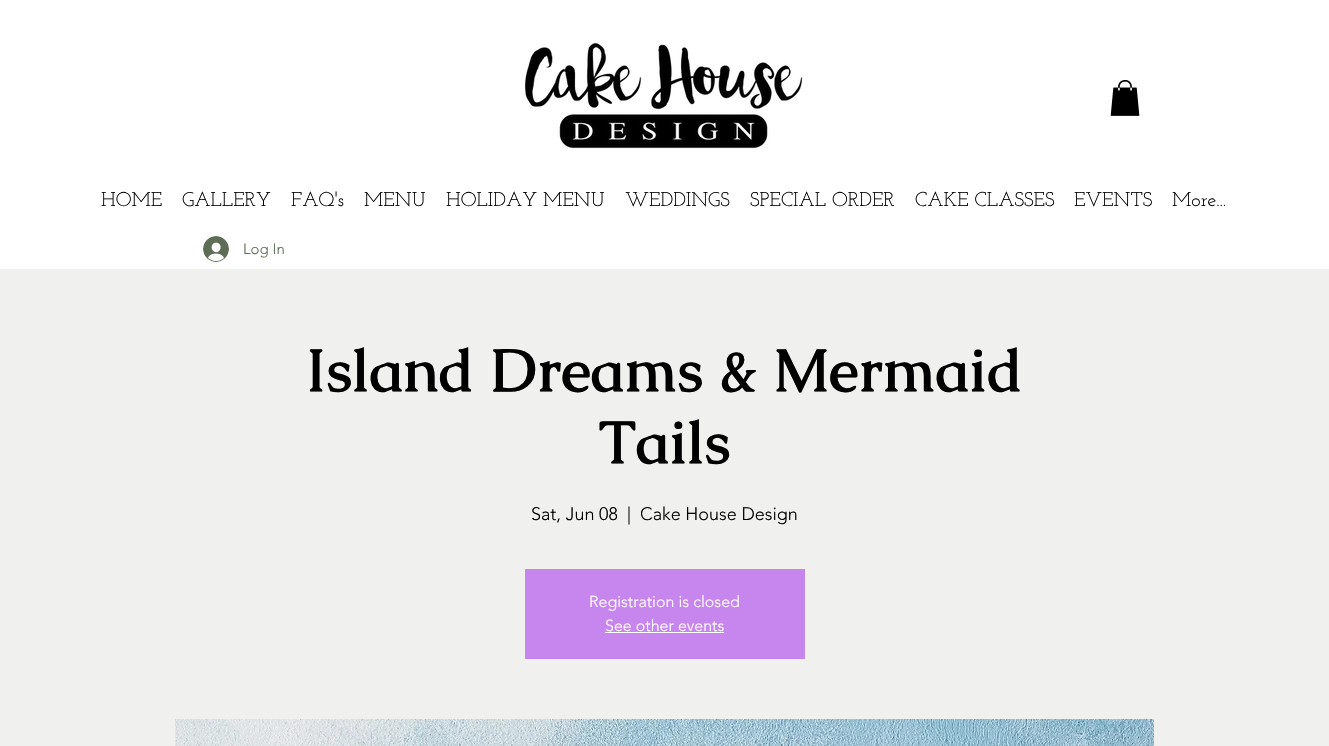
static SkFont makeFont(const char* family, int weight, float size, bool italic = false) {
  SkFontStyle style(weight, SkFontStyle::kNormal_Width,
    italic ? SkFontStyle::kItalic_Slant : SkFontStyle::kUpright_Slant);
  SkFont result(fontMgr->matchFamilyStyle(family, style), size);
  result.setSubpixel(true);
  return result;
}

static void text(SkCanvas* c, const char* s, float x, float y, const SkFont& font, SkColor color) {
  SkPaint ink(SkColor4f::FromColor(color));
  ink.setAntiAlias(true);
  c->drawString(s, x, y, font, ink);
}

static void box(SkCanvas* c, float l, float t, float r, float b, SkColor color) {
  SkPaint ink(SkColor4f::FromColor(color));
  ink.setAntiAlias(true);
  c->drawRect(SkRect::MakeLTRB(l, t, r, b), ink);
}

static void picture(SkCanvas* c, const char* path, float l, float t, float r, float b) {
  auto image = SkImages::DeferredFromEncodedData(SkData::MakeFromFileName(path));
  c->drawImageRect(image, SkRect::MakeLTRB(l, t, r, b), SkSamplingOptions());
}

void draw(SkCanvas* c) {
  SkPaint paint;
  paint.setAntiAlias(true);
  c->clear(0xffffffff);
  picture(c, "img_01.png", 524, 42, 803, 149);
  picture(c, "img_02.png", 1110, 80, 1140, 116);
  SkFont face1 = makeFont("Josefin Slab", 400, 20);
  text(c, "HOME", 101, 206, face1, 0xff000000);
  text(c, "GALLERY", 182, 206, face1, 0xff000000);
  text(c, "FAQ's", 291, 206, face1, 0xff000000);
  text(c, "MENU", 364, 206, face1, 0xff000000);
  text(c, "HOLIDAY MENU", 446, 206, face1, 0xff000000);
  text(c, "WEDDINGS", 625, 206, face1, 0xff000000);
  text(c, "SPECIAL ORDER", 750, 206, face1, 0xff000000);
  text(c, "CAKE CLASSES", 915, 206, face1, 0xff000000);
  text(c, "EVENTS", 1074, 206, face1, 0xff000000);
  text(c, "More...", 1172, 206, face1, 0xff000000);
  picture(c, "img_03.png", 203, 236, 229, 262);
  SkFont face2 = makeFont("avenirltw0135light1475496", 300, 15);
  text(c, "Log In", 243, 254, face2, 0xff5e6d55);
  box(c, 0, 269, 1329, 746, 0xfff0f1ef);
  SkFont face3 = makeFont("Caudex", 700, 60);
  text(c, "Island Dreams & Mermaid", 306, 391, face3, 0xff000000);
  text(c, "Tails", 599, 463, face3, 0xff000000);
  SkFont face4 = makeFont("avenirltw0135light1475496", 300, 18);
  text(c, "Sat, Jun 08", 531, 520, face4, 0xff000000);
  text(c, "|", 627, 520, face4, 0xff000000);
  text(c, "Cake House Design", 640, 520, face4, 0xff000000);
  box(c, 525, 569, 805, 659, 0xffc786ed);
  SkFont face5 = makeFont("avenirltw0135light1475496", 300, 16);
  text(c, "Registration is closed", 589, 607, face5, 0xffffffff);
  text(c, "See other events", 605, 631, face5, 0xffffffff);
  box(c, 605, 632, 724, 633, 0xffffffff);
  picture(c, "img_04.png", 175, 719, 1154, 746);
}
